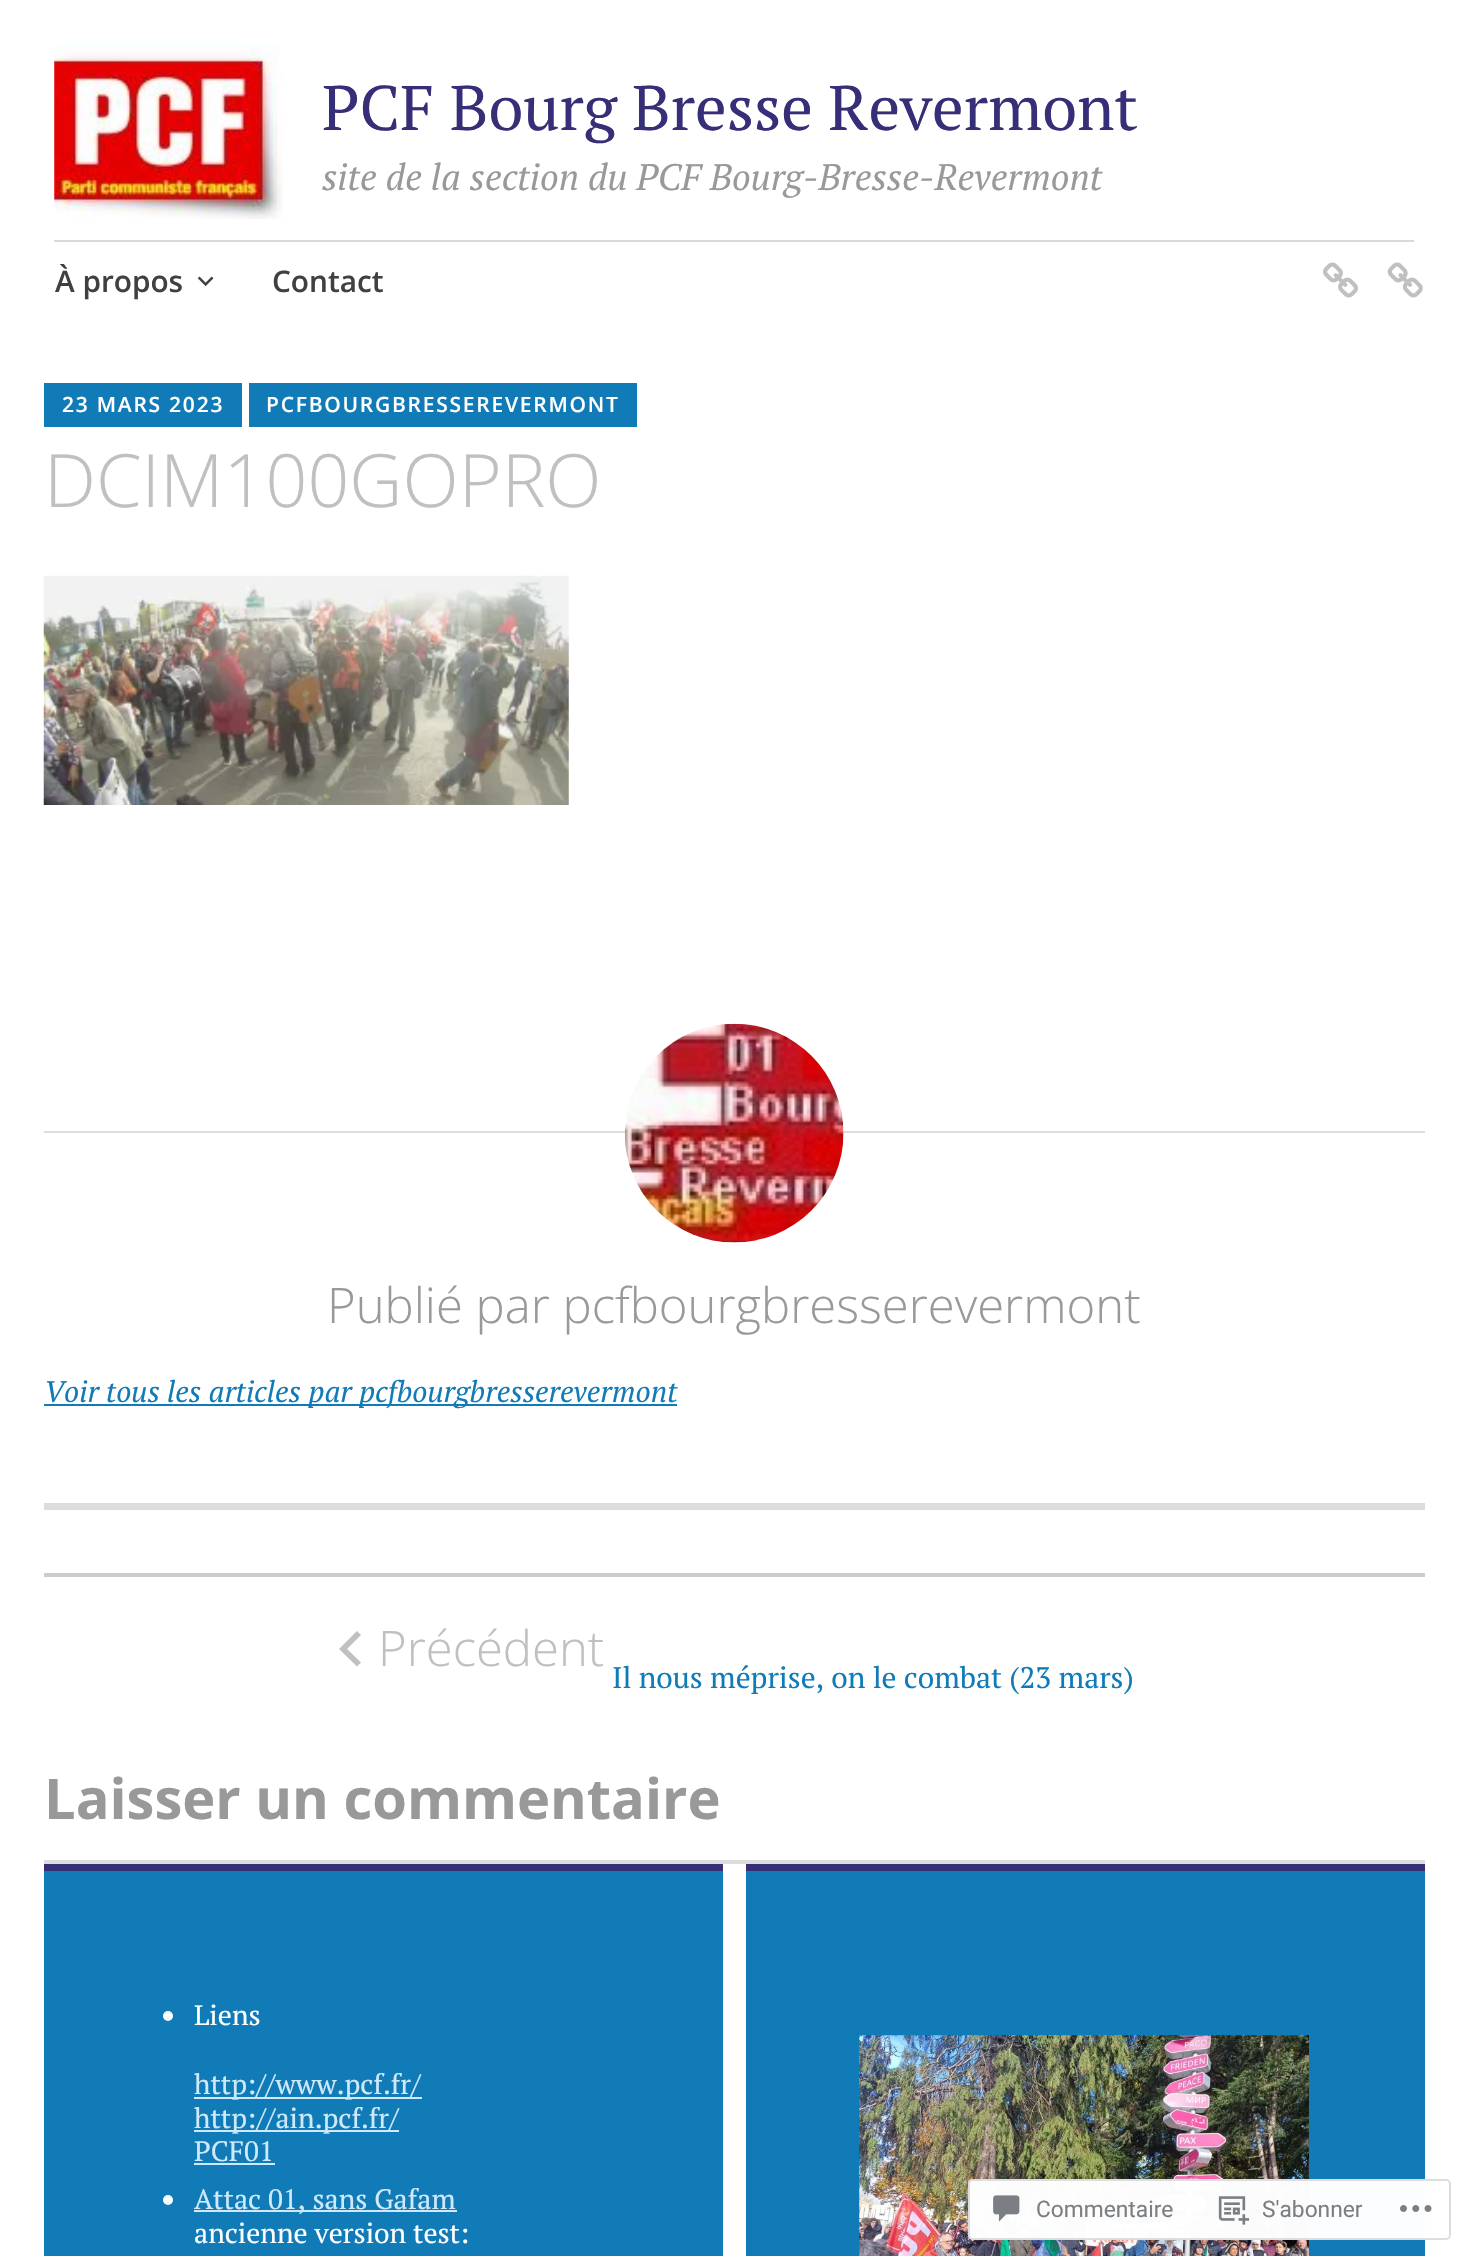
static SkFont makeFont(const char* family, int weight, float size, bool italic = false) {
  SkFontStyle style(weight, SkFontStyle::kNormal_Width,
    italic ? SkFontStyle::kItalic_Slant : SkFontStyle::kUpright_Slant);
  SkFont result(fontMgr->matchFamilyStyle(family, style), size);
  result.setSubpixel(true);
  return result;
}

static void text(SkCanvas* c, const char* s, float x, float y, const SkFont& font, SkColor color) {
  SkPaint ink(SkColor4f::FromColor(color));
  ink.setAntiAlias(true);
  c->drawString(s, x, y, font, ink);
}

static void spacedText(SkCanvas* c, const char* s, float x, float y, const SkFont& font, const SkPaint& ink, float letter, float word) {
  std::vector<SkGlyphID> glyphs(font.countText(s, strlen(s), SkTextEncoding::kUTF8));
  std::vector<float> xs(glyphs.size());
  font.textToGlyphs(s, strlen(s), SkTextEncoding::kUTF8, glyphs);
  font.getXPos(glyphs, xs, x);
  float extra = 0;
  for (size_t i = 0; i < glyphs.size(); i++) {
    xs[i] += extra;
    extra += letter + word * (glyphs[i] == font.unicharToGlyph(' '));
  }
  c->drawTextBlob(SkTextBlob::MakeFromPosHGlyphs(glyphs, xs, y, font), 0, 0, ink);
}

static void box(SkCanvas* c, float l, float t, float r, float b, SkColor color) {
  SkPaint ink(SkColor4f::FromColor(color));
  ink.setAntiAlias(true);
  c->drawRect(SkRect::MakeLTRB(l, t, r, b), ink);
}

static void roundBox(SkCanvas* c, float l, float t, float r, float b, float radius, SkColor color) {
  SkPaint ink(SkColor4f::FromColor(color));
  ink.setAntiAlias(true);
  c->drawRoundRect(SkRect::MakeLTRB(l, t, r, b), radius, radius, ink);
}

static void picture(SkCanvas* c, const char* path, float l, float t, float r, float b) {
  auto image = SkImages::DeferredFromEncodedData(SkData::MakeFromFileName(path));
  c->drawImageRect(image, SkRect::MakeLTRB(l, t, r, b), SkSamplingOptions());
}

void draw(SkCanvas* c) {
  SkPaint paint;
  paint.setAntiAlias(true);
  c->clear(0xffffffff);
  picture(c, "img_01.png", 54, 44, 283, 219);
  SkFont face1 = makeFont("PT Serif", 400, 63);
  text(c, "PCF Bourg Bresse Revermont", 322, 130, face1, 0xff362e77);
  SkFont face2 = makeFont("PT Serif", 400, 36.75f, true);
  text(c, "site de la section du PCF Bourg-Bresse-Revermont", 322, 190, face2, 0xff999999);
  box(c, 54, 240, 1414, 242, 0xffd9d9d9);
  SkFont face3 = makeFont("Open Sans", 600, 29.75f);
  text(c, "À propos", 55, 292, face3, 0xff404040);
  picture(c, "img_02.png", 197, 276, 214, 286);
  text(c, "Contact", 272, 292, face3, 0xff404040);
  picture(c, "img_03.png", 1323, 262, 1358, 298);
  picture(c, "img_04.png", 1387, 262, 1423, 298);
  box(c, 44, 383, 242, 427, 0xff117bb8);
  SkFont face4 = makeFont("Open Sans", 600, 21);
  paint.setColor(0xffffffff);
  spacedText(c, "23 MARS 2023", 62, 412, face4, paint, 1.75f, 0);
  box(c, 249, 383, 637, 427, 0xff117bb8);
  spacedText(c, "PCFBOURGBRESSEREVERMONT", 266, 412, face4, paint, 1.75f, 0);
  SkFont face5 = makeFont("Open Sans", 300, 73.5f);
  text(c, "DCIM100GOPRO", 44, 507, face5, 0xffc0c0c0);
  picture(c, "img_05.png", 43, 575, 569, 805);
  box(c, 44, 1503, 1425, 1510, 0xffdddddd);
  box(c, 44, 1131, 1425, 1133, 0xffdddddd);
  picture(c, "img_06.png", 624, 1023, 844, 1243);
  SkFont face6 = makeFont("Open Sans", 300, 49);
  text(c, "Publié par pcfbourgbresserevermont", 327, 1323, face6, 0xff999999);
  box(c, 44, 1404, 677, 1406, 0xff117bb8);
  SkFont face7 = makeFont("PT Serif", 400, 29.75f, true);
  text(c, "Voir tous les articles par pcfbourgbresserevermont", 44, 1402, face7, 0xff117bb8);
  box(c, 44, 1573, 1425, 1577, 0xffcccccc);
  paint.setColor(0xffc0c0c0);
  c->drawPath(SkPathBuilder().moveTo(361, 1635).lineTo(347, 1649).lineTo(361, 1662.5f).lineTo(357, 1666.5f).lineTo(339, 1649).lineTo(357, 1631).close().detach(), paint);
  text(c, "Précédent", 378, 1666, face6, 0xffc0c0c0);
  SkFont face8 = makeFont("PT Serif", 400, 29.75f);
  text(c, "Il nous méprise, on le combat (23 mars)", 612, 1688, face8, 0xff117bb8);
  SkFont face9 = makeFont("Open Sans", 700, 56);
  text(c, "Laisser un commentaire", 44, 1819, face9, 0xff999999);
  box(c, 44, 1860, 1425, 1864, 0xffdcdcde);
  box(c, 44, 1871, 723, 2256, 0xff117bb8);
  box(c, 44, 1864, 723, 1871, 0xff362e77);
  paint.setColor(0xffffffff);
  c->drawCircle(168, 2016, 5, paint);
  SkFont face10 = makeFont("PT Serif", 400, 28);
  text(c, "Liens", 194, 2025, face10, 0xffffffff);
  box(c, 194, 2097, 422, 2099, 0xffceeafa);
  text(c, "http://www.pcf.fr/", 194, 2094, face10, 0xffceeafa);
  box(c, 194, 2130, 399, 2132, 0xffceeafa);
  text(c, "http://ain.pcf.fr/", 194, 2128, face10, 0xffceeafa);
  text(c, "PCF01", 194, 2161, face10, 0xffceeafa);
  box(c, 194, 2163, 275, 2165, 0xffceeafa);
  c->drawCircle(168, 2200, 5, paint);
  box(c, 194, 2210, 457, 2212, 0xffceeafa);
  text(c, "Attac 01, sans Gafam", 194, 2209, face10, 0xffceeafa);
  text(c, "ancienne version test:", 194, 2243, face10, 0xffffffff);
  box(c, 746, 1871, 1425, 2256, 0xff117bb8);
  box(c, 746, 1864, 1425, 1871, 0xff362e77);
  picture(c, "img_07.png", 859, 2035, 1309, 2256);
  roundBox(c, 968, 2179, 1451, 2240, 5, 0xfaffffff);
  paint.setStyle(SkPaint::kStroke_Style);
  paint.setStrokeWidth(2);
  paint.setColor(0xfadcdcde);
  c->drawRoundRect(SkRect::MakeLTRB(969, 2180, 1450, 2239), 4, 4, paint);
  picture(c, "img_08.png", 993, 2195, 1020, 2222);
  SkFont face11 = makeFont("Roboto", 400, 22.75f);
  text(c, "Commentaire", 1036, 2217, face11, 0xff7b7f84);
  picture(c, "img_09.png", 1218, 2196, 1250, 2225);
  text(c, "S'abonner", 1262, 2217, face11, 0xff7b7f84);
  picture(c, "img_10.png", 1400, 2205, 1432, 2212);
}
